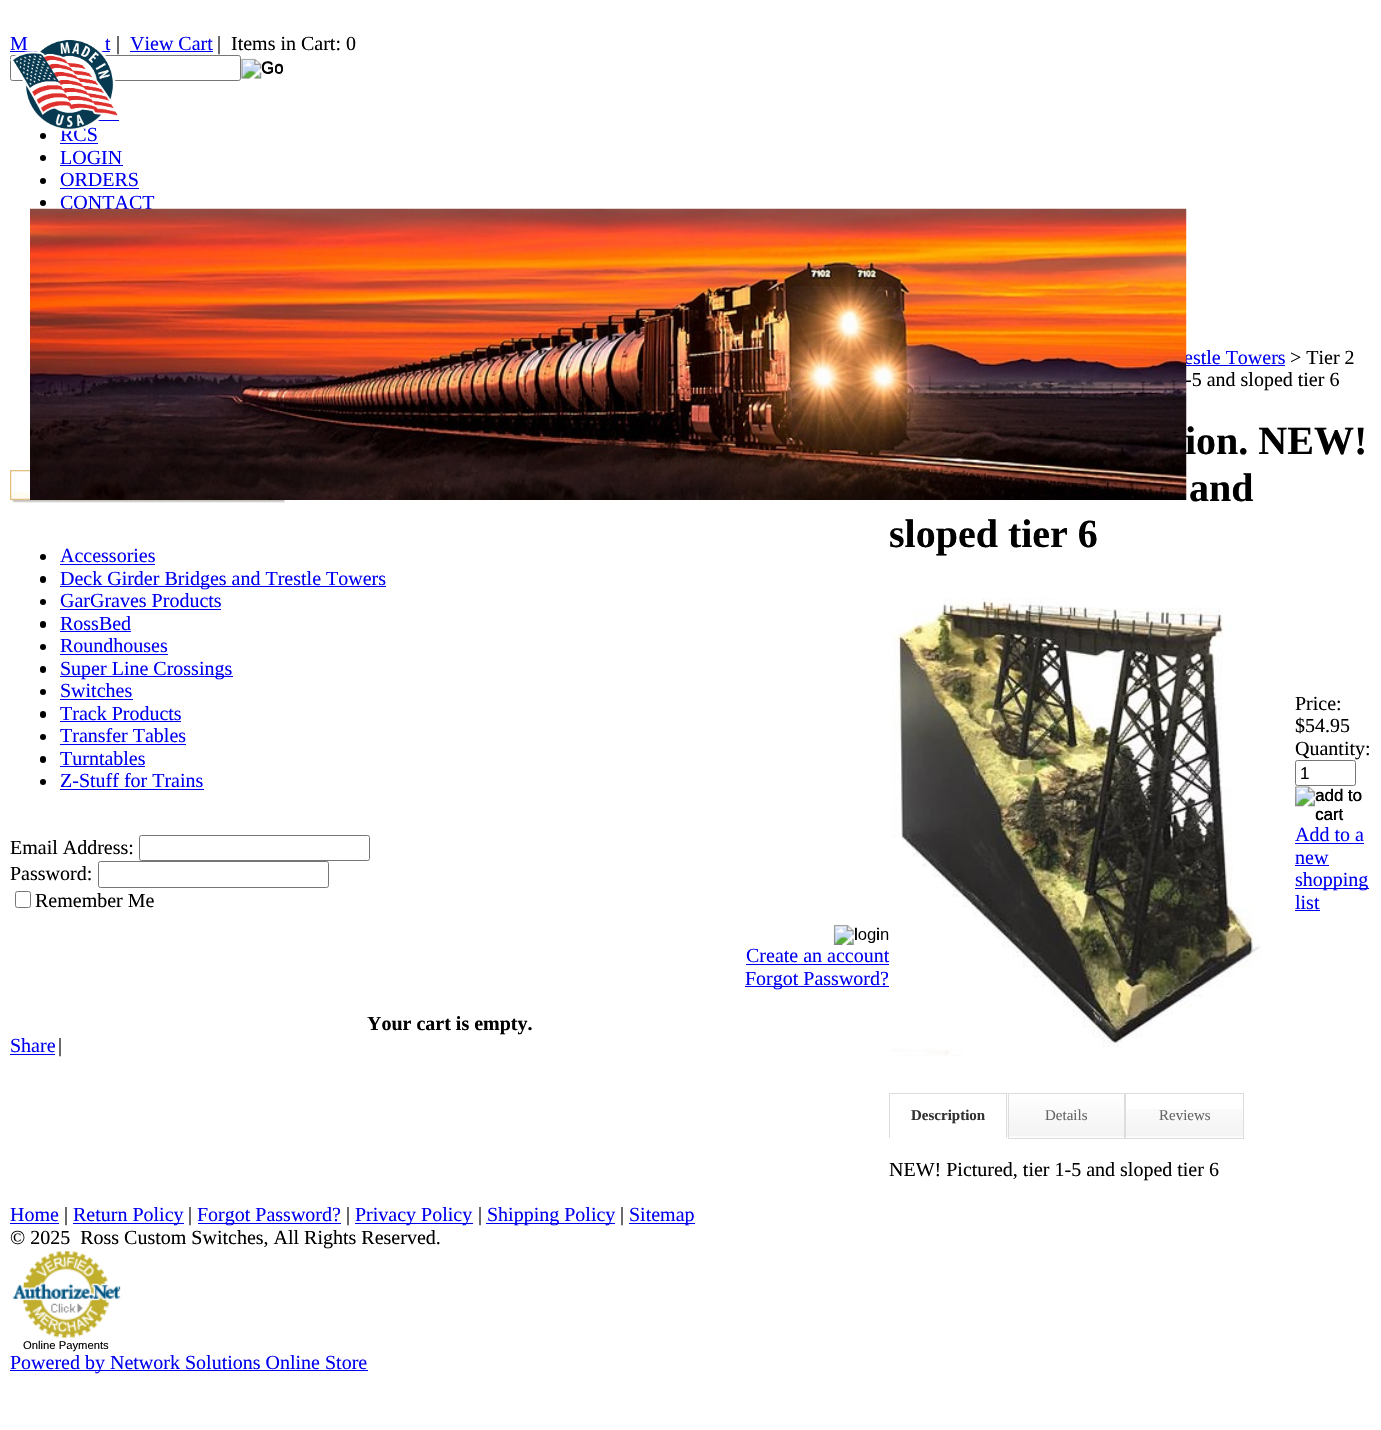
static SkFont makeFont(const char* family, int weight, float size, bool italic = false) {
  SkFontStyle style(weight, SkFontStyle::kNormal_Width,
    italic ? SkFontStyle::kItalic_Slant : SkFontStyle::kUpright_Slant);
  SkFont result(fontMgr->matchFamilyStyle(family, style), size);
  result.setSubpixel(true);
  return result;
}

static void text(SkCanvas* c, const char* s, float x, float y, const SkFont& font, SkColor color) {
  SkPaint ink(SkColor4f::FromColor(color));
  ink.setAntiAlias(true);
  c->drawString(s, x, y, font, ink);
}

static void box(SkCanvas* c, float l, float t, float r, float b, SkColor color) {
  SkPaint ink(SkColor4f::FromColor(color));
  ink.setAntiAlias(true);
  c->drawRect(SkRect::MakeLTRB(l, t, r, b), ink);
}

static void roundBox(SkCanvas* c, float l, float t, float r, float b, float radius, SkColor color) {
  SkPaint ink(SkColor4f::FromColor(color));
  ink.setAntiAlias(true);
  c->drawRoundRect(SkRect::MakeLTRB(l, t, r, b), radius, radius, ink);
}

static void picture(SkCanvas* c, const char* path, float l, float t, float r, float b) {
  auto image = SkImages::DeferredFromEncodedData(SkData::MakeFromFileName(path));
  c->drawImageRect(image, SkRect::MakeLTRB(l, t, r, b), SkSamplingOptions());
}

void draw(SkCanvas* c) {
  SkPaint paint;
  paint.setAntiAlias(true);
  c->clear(0xffffffff);
  SkFont face1 = makeFont("Liberation Serif", 400, 20);
  text(c, "M", 10, 50, face1, 0xff0000ee);
  text(c, "t", 105, 50, face1, 0xff0000ee);
  box(c, 10, 51, 110, 52, 0xff0000ee);
  text(c, "|", 116, 50, face1, 0xff000000);
  text(c, "View Cart", 130, 50, face1, 0xff0000ee);
  box(c, 130, 51, 213, 52, 0xff0000ee);
  text(c, "|  Items in Cart: 0", 217, 50, face1, 0xff000000);
  paint.setStyle(SkPaint::kStroke_Style);
  paint.setStrokeWidth(1);
  paint.setColor(0xff767676);
  c->drawRoundRect(SkRect::MakeLTRB(10.5f, 55.5f, 240.5f, 80.5f), 2, 2, paint);
  picture(c, "img_01.png", 241, 58, 283, 79);
  SkFont face2 = makeFont("Liberation Sans", 400, 17);
  text(c, "Go", 261, 73, face2, 0xff000000);
  box(c, 97, 120, 119, 121, 0xff0000ee);
  text(c, "RCS", 60, 141, face1, 0xff0000ee);
  picture(c, "img_02.png", 10, 39, 118, 132);
  paint.setStyle(SkPaint::kFill_Style);
  paint.setColor(0xff000000);
  c->drawCircle(43, 136, 3, paint);
  box(c, 60, 143, 98, 144, 0xff0000ee);
  c->drawCircle(43, 158, 3, paint);
  text(c, "LOGIN", 60, 164, face1, 0xff0000ee);
  box(c, 60, 165, 123, 166, 0xff0000ee);
  c->drawCircle(43, 181, 3, paint);
  text(c, "ORDERS", 60, 186, face1, 0xff0000ee);
  box(c, 60, 188, 139, 189, 0xff0000ee);
  c->drawCircle(43, 203, 3, paint);
  text(c, "CONTACT", 60, 209, face1, 0xff0000ee);
  picture(c, "img_04.png", 10, 470, 285, 503);
  text(c, "estle Towers", 1184, 364, face1, 0xff0000ee);
  box(c, 1186, 365, 1285, 366, 0xff0000ee);
  text(c, "-5 and sloped tier 6", 1185, 386, face1, 0xff000000);
  SkFont face3 = makeFont("Liberation Serif", 700, 40);
  text(c, "ion. NEW!", 1185, 454, face3, 0xff000000);
  picture(c, "img_03.png", 30, 208, 1187, 500);
  c->drawCircle(43, 557, 3, paint);
  text(c, "Accessories", 60, 562, face1, 0xff0000ee);
  box(c, 60, 564, 155, 565, 0xff0000ee);
  roundBox(c, 40, 576, 46, 583, 3, 0xff000000);
  box(c, 60, 586, 386, 587, 0xff0000ee);
  text(c, "Deck Girder Bridges and Trestle Towers", 60, 585, face1, 0xff0000ee);
  c->drawCircle(43, 602, 3, paint);
  text(c, "GarGraves Products", 60, 607, face1, 0xff0000ee);
  box(c, 60, 609, 221, 610, 0xff0000ee);
  roundBox(c, 40, 621, 46, 628, 3, 0xff000000);
  text(c, "RossBed", 60, 630, face1, 0xff0000ee);
  box(c, 60, 631, 131, 632, 0xff0000ee);
  c->drawCircle(43, 647, 3, paint);
  text(c, "Roundhouses", 60, 652, face1, 0xff0000ee);
  box(c, 60, 654, 168, 655, 0xff0000ee);
  roundBox(c, 40, 666, 46, 673, 3, 0xff000000);
  box(c, 60, 676, 233, 677, 0xff0000ee);
  text(c, "Super Line Crossings", 60, 675, face1, 0xff0000ee);
  c->drawCircle(43, 692, 3, paint);
  text(c, "Switches", 60, 697, face1, 0xff0000ee);
  box(c, 60, 699, 133, 700, 0xff0000ee);
  roundBox(c, 40, 711, 46, 718, 3, 0xff000000);
  text(c, "Track Products", 60, 720, face1, 0xff0000ee);
  box(c, 60, 721, 181, 722, 0xff0000ee);
  c->drawCircle(43, 737, 3, paint);
  text(c, "Transfer Tables", 60, 742, face1, 0xff0000ee);
  box(c, 60, 744, 186, 745, 0xff0000ee);
  roundBox(c, 40, 756, 46, 763, 3, 0xff000000);
  text(c, "Turntables", 60, 765, face1, 0xff0000ee);
  box(c, 60, 766, 145, 767, 0xff0000ee);
  c->drawCircle(43, 782, 3, paint);
  text(c, "Z-Stuff for Trains", 60, 787, face1, 0xff0000ee);
  box(c, 60, 789, 204, 790, 0xff0000ee);
  text(c, "Email Address:", 10, 854, face1, 0xff000000);
  paint.setStyle(SkPaint::kStroke_Style);
  paint.setColor(0xff767676);
  c->drawRoundRect(SkRect::MakeLTRB(139.5f, 835.5f, 369.5f, 860.5f), 2, 2, paint);
  text(c, "Password:", 10, 880, face1, 0xff000000);
  c->drawRoundRect(SkRect::MakeLTRB(98.5f, 861.5f, 328.5f, 887.5f), 2, 2, paint);
  c->drawRoundRect(SkRect::MakeLTRB(15.5f, 891.5f, 30.5f, 907.5f), 2, 2, paint);
  text(c, "Remember Me", 35, 907, face1, 0xff000000);
  picture(c, "img_05.png", 833, 925, 889, 945);
  text(c, "l", 854, 940, face2, 0xff000000);
  text(c, "i", 876, 940, face2, 0xff000000);
  text(c, "Create an account", 746, 962, face1, 0xff0000ee);
  box(c, 746, 964, 889, 965, 0xff0000ee);
  box(c, 745, 986, 889, 987, 0xff0000ee);
  text(c, "Forgot Password?", 745, 985, face1, 0xff0000ee);
  SkFont face4 = makeFont("Liberation Serif", 700, 20);
  text(c, "Your cart is empty.", 367, 1030, face4, 0xff000000);
  text(c, "Share", 10, 1052, face1, 0xff0000ee);
  box(c, 10, 1054, 55, 1055, 0xff0000ee);
  text(c, "|", 58, 1052, face1, 0xff000000);
  text(c, "> Tier 2", 1290, 364, face1, 0xff000000);
  text(c, "and", 1189, 501, face3, 0xff000000);
  text(c, "sloped tier 6", 889, 547, face3, 0xff000000);
  picture(c, "img_06.png", 892, 597, 1261, 1056);
  text(c, "Price:", 1295, 710, face1, 0xff000000);
  text(c, "$54.95", 1295, 732, face1, 0xff000000);
  text(c, "Quantity:", 1295, 755, face1, 0xff000000);
  c->drawRoundRect(SkRect::MakeLTRB(1295.5f, 760.5f, 1355.5f, 785.5f), 2, 2, paint);
  text(c, "1", 1300, 779, face2, 0xff000000);
  picture(c, "img_07.png", 1295, 786, 1361, 820);
  text(c, "add to", 1315, 801, face2, 0xff000000);
  text(c, "cart", 1315, 820, face2, 0xff000000);
  text(c, "Add to a", 1295, 841, face1, 0xff0000ee);
  box(c, 1295, 843, 1364, 844, 0xff0000ee);
  text(c, "new", 1295, 864, face1, 0xff0000ee);
  box(c, 1295, 865, 1329, 866, 0xff0000ee);
  box(c, 1295, 888, 1369, 889, 0xff0000ee);
  text(c, "shopping", 1295, 886, face1, 0xff0000ee);
  text(c, "list", 1295, 909, face1, 0xff0000ee);
  box(c, 1295, 910, 1320, 911, 0xff0000ee);
  box(c, 889, 1093, 1008, 1094, 0xffdddddd);
  box(c, 1006, 1093, 1007, 1138, 0xffdddddd);
  box(c, 889, 1093, 890, 1138, 0xffdddddd);
  SkFont face5 = makeFont("Liberation Serif", 700, 15);
  text(c, "Description", 911, 1120, face5, 0xff333333);
  picture(c, "img_08.png", 1007, 1093, 1124, 1137);
  paint.setColor(0xffdddddd);
  c->drawRect(SkRect::MakeLTRB(1008.5f, 1093.5f, 1124.5f, 1138.5f), paint);
  SkFont face6 = makeFont("Liberation Serif", 400, 15);
  text(c, "Details", 1045, 1120, face6, 0xff666666);
  picture(c, "img_09.png", 1126, 1109, 1243, 1137);
  c->drawRect(SkRect::MakeLTRB(1125.5f, 1093.5f, 1243.5f, 1138.5f), paint);
  text(c, "Reviews", 1159, 1120, face6, 0xff666666);
  text(c, "NEW! Pictured, tier 1-5 and sloped tier 6", 889, 1176, face1, 0xff000000);
  text(c, "Home", 10, 1221, face1, 0xff0000ee);
  box(c, 10, 1223, 59, 1224, 0xff0000ee);
  text(c, "|", 64, 1221, face1, 0xff000000);
  box(c, 73, 1223, 184, 1224, 0xff0000ee);
  text(c, "Return Policy", 73, 1221, face1, 0xff0000ee);
  text(c, "|", 188, 1221, face1, 0xff000000);
  box(c, 198, 1223, 341, 1224, 0xff0000ee);
  text(c, "Forgot Password?", 197, 1221, face1, 0xff0000ee);
  text(c, "|", 346, 1221, face1, 0xff000000);
  box(c, 355, 1223, 473, 1224, 0xff0000ee);
  text(c, "Privacy Policy", 355, 1221, face1, 0xff0000ee);
  text(c, "|", 478, 1221, face1, 0xff000000);
  box(c, 486, 1223, 615, 1224, 0xff0000ee);
  text(c, "Shipping Policy", 487, 1221, face1, 0xff0000ee);
  text(c, "|", 620, 1221, face1, 0xff000000);
  box(c, 629, 1223, 695, 1224, 0xff0000ee);
  text(c, "Sitemap", 629, 1221, face1, 0xff0000ee);
  text(c, "© 2025  Ross Custom Switches, All Rights Reserved.", 10, 1244, face1, 0xff000000);
  picture(c, "img_10.png", 12, 1251, 121, 1338);
  SkFont face7 = makeFont("Liberation Sans", 400, 11.25f);
  text(c, "Online Payments", 23, 1349, face7, 0xff000000);
  box(c, 10, 1370, 368, 1371, 0xff0000ee);
  text(c, "Powered by Network Solutions Online Store", 10, 1369, face1, 0xff0000ee);
}
